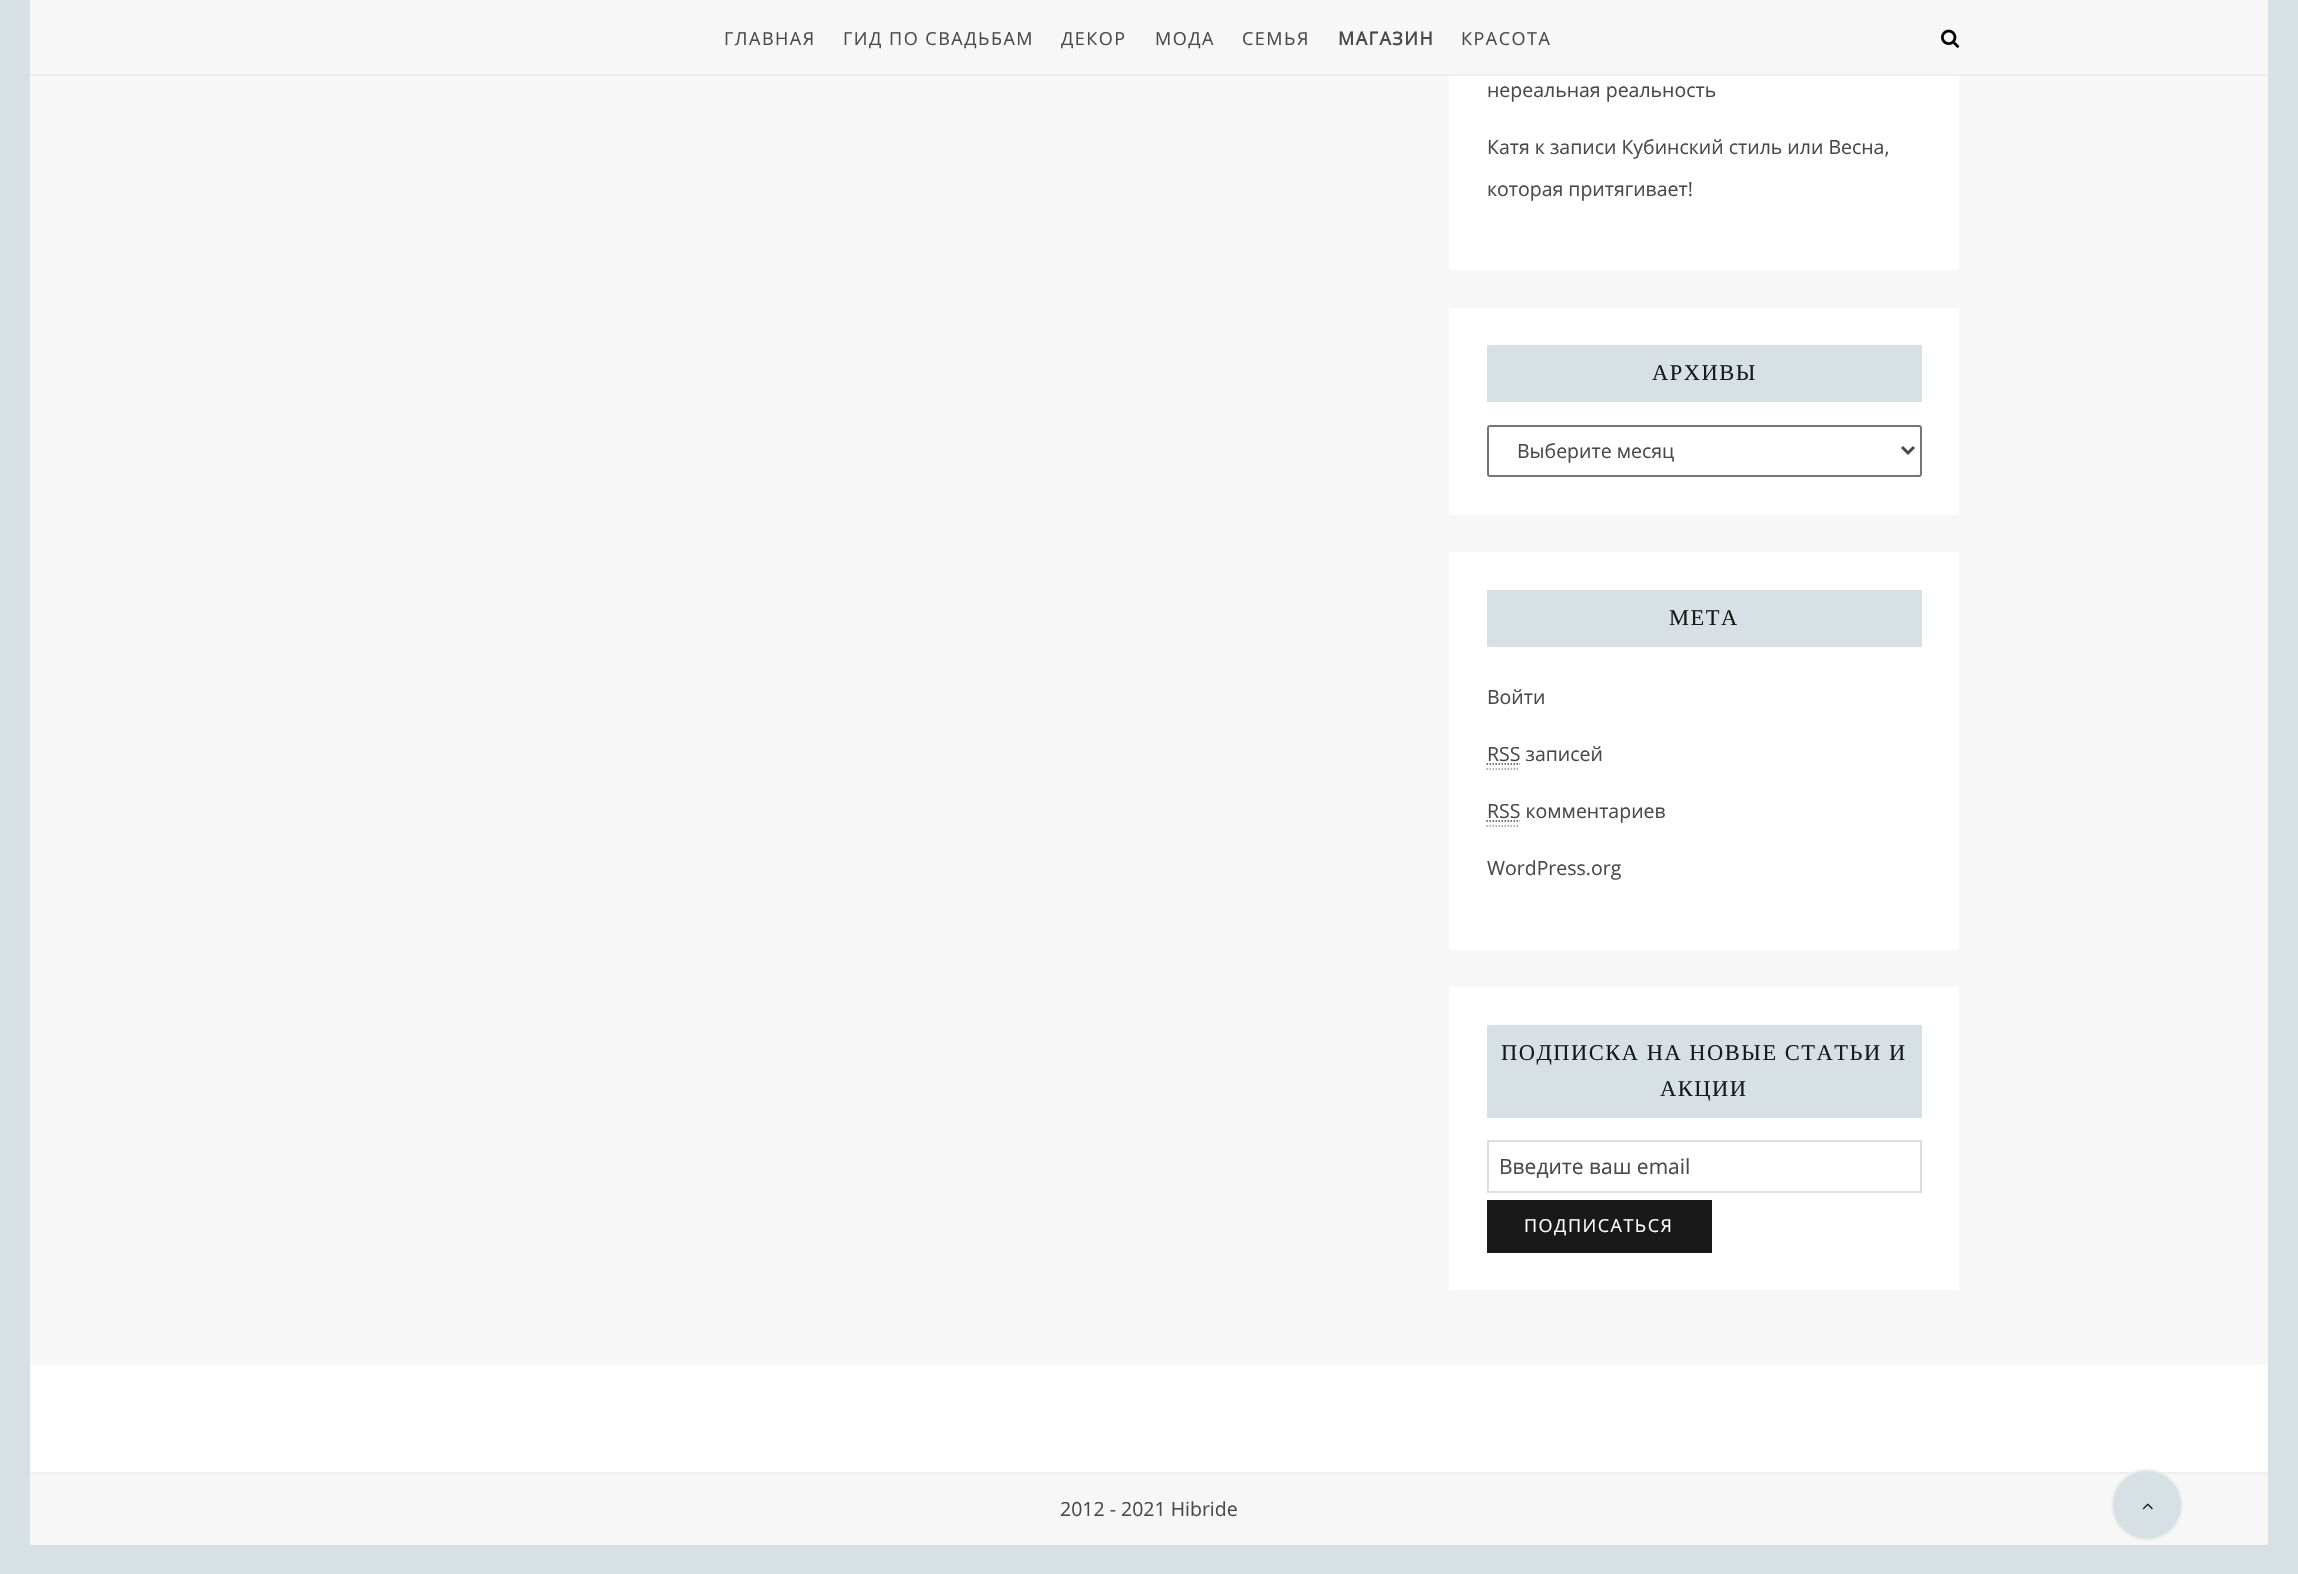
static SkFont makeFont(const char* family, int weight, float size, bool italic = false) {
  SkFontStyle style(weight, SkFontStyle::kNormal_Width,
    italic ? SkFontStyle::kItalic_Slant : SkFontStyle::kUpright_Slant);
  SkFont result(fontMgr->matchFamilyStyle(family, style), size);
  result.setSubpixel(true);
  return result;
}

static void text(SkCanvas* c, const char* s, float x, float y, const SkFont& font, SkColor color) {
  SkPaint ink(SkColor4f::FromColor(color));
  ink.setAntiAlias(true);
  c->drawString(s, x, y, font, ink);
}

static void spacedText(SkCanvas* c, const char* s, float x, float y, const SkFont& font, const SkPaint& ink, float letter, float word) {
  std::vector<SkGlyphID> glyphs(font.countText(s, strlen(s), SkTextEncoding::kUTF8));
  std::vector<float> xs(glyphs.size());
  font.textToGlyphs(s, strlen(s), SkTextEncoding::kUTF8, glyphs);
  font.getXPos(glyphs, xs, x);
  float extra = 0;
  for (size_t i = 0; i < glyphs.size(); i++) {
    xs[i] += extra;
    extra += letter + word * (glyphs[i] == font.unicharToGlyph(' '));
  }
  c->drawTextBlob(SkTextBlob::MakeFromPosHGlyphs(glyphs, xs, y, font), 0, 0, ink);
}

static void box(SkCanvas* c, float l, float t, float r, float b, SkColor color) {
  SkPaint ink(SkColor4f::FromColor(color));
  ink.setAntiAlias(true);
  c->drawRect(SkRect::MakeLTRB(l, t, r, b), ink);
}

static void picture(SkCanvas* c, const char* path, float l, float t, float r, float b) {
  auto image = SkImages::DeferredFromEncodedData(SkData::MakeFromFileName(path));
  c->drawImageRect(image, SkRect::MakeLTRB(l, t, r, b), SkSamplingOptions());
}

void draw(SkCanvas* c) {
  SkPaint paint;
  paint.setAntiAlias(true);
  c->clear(0xfff7f7f7);
  paint.setStyle(SkPaint::kStroke_Style);
  paint.setStrokeWidth(30);
  paint.setColor(0xffd7e1e5);
  c->drawRect(SkRect::MakeLTRB(15, -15, 2283, 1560), paint);
  box(c, 30, 74, 2268, 76, 0xffeeeeee);
  SkFont face1 = makeFont("Open Sans", 400, 18);
  paint.setStyle(SkPaint::kFill_Style);
  paint.setColor(0xff494949);
  spacedText(c, "ГЛАВНАЯ", 724, 45, face1, paint, 1.5f, 0);
  spacedText(c, "ГИД ПО СВАДЬБАМ", 843, 45, face1, paint, 1.5f, 0);
  spacedText(c, "ДЕКОР", 1061, 45, face1, paint, 1.5f, 0);
  spacedText(c, "МОДА", 1155, 45, face1, paint, 1.5f, 0);
  spacedText(c, "СЕМЬЯ", 1242, 45, face1, paint, 1.5f, 0);
  SkFont face2 = makeFont("Open Sans", 700, 18);
  spacedText(c, "МАГАЗИН", 1338, 45, face2, paint, 1.5f, 0);
  spacedText(c, "КРАСОТА", 1461, 45, face1, paint, 1.5f, 0);
  picture(c, "img_01.png", 1941, 29, 1960, 48);
  box(c, 1449, 76, 1959, 270, 0xffffffff);
  SkFont face3 = makeFont("Open Sans", 400, 19.5f);
  text(c, "нереальная реальность", 1487, 97, face3, 0xff494949);
  text(c, "Катя к записи Кубинский стиль или Весна,", 1487, 154, face3, 0xff494949);
  text(c, "которая притягивает!", 1487, 196, face3, 0xff494949);
  box(c, 1449, 308, 1959, 515, 0xffffffff);
  box(c, 1487, 345, 1922, 402, 0xffd7e1e5);
  SkFont face4 = makeFont("Liberation Serif", 400, 22.5f);
  paint.setColor(0xff191919);
  spacedText(c, "АРХИВЫ", 1652, 380, face4, paint, 1.5f, 0);
  paint.setStyle(SkPaint::kStroke_Style);
  paint.setStrokeWidth(2);
  paint.setColor(0xff767676);
  c->drawRoundRect(SkRect::MakeLTRB(1488, 426, 1921, 476), 2, 2, paint);
  paint.setStrokeWidth(3);
  paint.setColor(0xff494949);
  c->drawPath(SkPathBuilder().moveTo(1902, 447).lineTo(1908, 453).lineTo(1914, 447).detach(), paint);
  text(c, "Выберите месяц", 1517, 458, face3, 0xff494949);
  box(c, 1449, 552, 1959, 950, 0xffffffff);
  box(c, 1487, 590, 1922, 647, 0xffd7e1e5);
  paint.setStyle(SkPaint::kFill_Style);
  paint.setColor(0xff191919);
  spacedText(c, "МЕТА", 1669, 625, face4, paint, 1.5f, 0);
  text(c, "Войти", 1487, 704, face3, 0xff494949);
  text(c, "RSS записей", 1487, 761, face3, 0xff494949);
  paint.setStyle(SkPaint::kStroke_Style);
  paint.setStrokeWidth(1.5f);
  paint.setColor(0xff999999);
  paint.setPathEffect(SkDashPathEffect::Make({{1.5f, 1.5f}}, 0));
  c->drawPath(SkPathBuilder().moveTo(1486.5f, 769).lineTo(1519.5f, 769).detach(), paint);
  paint.setPathEffect(nullptr);
  paint.setColor(0xff494949);
  paint.setPathEffect(SkDashPathEffect::Make({{1.5f, 1.5f}}, 0));
  c->drawPath(SkPathBuilder().moveTo(1486.5f, 764).lineTo(1520, 764).detach(), paint);
  paint.setPathEffect(nullptr);
  paint.setPathEffect(SkDashPathEffect::Make({{1.5f, 1.5f}}, 0));
  c->drawPath(SkPathBuilder().moveTo(1486.5f, 821).lineTo(1520, 821).detach(), paint);
  paint.setPathEffect(nullptr);
  text(c, "RSS комментариев", 1487, 818, face3, 0xff494949);
  paint.setColor(0xff999999);
  paint.setPathEffect(SkDashPathEffect::Make({{1.5f, 1.5f}}, 0));
  c->drawPath(SkPathBuilder().moveTo(1486.5f, 826).lineTo(1519.5f, 826).detach(), paint);
  paint.setPathEffect(nullptr);
  text(c, "WordPress.org", 1487, 875, face3, 0xff494949);
  box(c, 1449, 987, 1959, 1290, 0xffffffff);
  box(c, 1487, 1025, 1922, 1118, 0xffd7e1e5);
  paint.setStyle(SkPaint::kFill_Style);
  paint.setColor(0xff191919);
  spacedText(c, "ПОДПИСКА НА НОВЫЕ СТАТЬИ И", 1501, 1060, face4, paint, 1.5f, 0);
  spacedText(c, "АКЦИИ", 1660, 1096, face4, paint, 1.5f, 0);
  paint.setStyle(SkPaint::kStroke_Style);
  paint.setStrokeWidth(2);
  paint.setColor(0xffdddddd);
  c->drawRect(SkRect::MakeLTRB(1488, 1141, 1921, 1192), paint);
  SkFont face5 = makeFont("Open Sans", 400, 21);
  text(c, "Введите ваш email", 1499, 1174, face5, 0xff494949);
  box(c, 1487, 1200, 1712, 1253, 0xff191919);
  paint.setStyle(SkPaint::kFill_Style);
  paint.setColor(0xffffffff);
  spacedText(c, "ПОДПИСАТЬСЯ", 1524, 1232, face1, paint, 1.5f, 0);
  box(c, 30, 1365, 2268, 1472, 0xffffffff);
  box(c, 30, 1472, 2268, 1474, 0xffefefef);
  paint.setColor(0xffd7e1e5);
  c->drawCircle(2147, 1505, 35, paint);
  paint.setStyle(SkPaint::kStroke_Style);
  paint.setColor(0xffeeeeee);
  c->drawCircle(2147, 1505, 35, paint);
  picture(c, "img_02.png", 2142, 1503, 2153, 1510);
  text(c, "2012 - 2021 Hibride", 1060, 1516, face3, 0xff494949);
}
